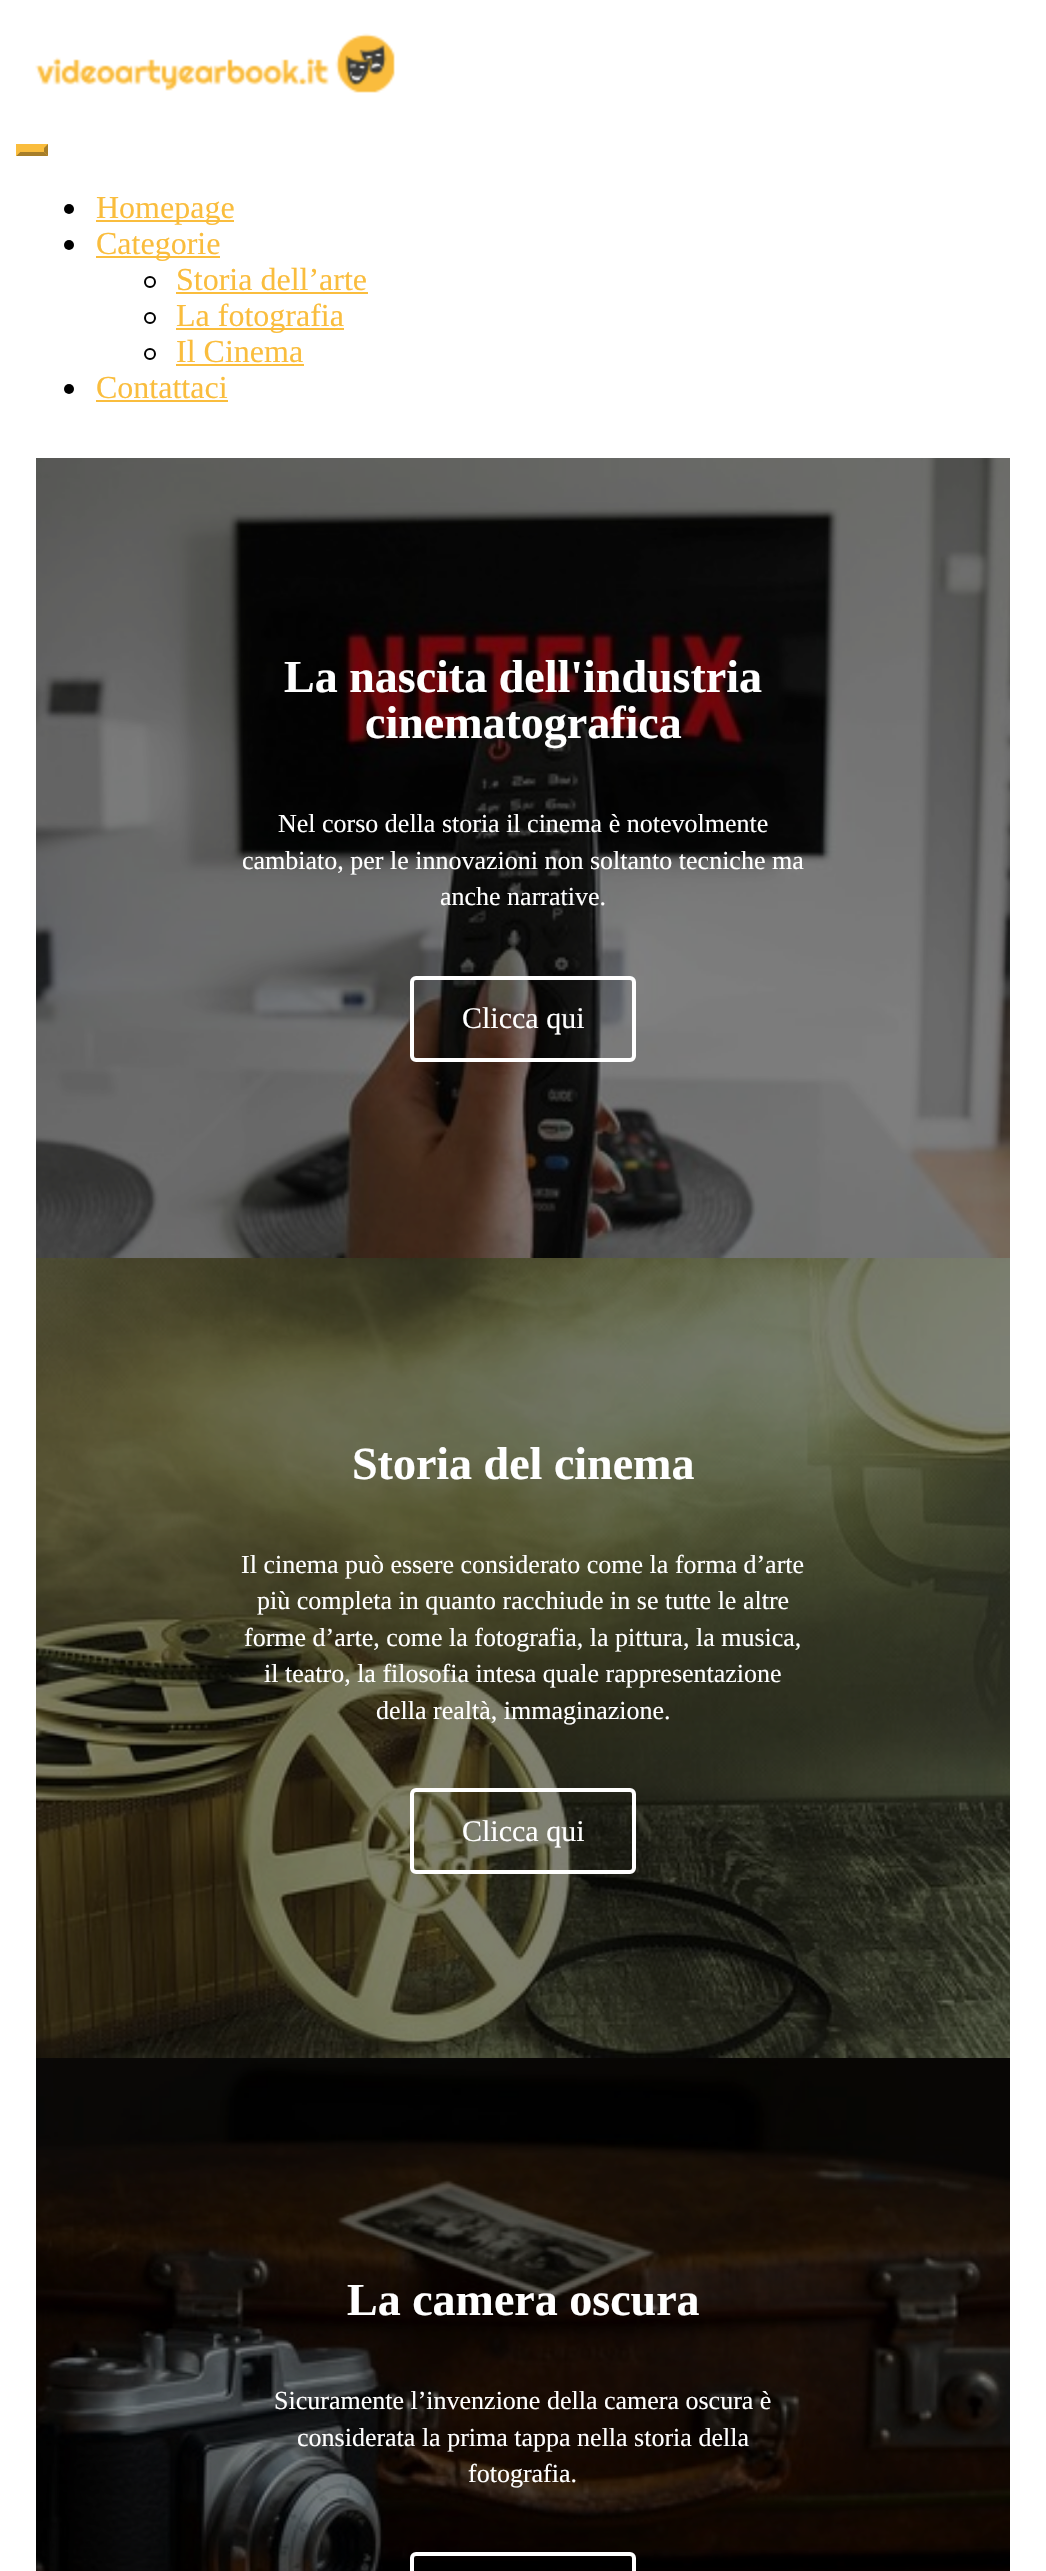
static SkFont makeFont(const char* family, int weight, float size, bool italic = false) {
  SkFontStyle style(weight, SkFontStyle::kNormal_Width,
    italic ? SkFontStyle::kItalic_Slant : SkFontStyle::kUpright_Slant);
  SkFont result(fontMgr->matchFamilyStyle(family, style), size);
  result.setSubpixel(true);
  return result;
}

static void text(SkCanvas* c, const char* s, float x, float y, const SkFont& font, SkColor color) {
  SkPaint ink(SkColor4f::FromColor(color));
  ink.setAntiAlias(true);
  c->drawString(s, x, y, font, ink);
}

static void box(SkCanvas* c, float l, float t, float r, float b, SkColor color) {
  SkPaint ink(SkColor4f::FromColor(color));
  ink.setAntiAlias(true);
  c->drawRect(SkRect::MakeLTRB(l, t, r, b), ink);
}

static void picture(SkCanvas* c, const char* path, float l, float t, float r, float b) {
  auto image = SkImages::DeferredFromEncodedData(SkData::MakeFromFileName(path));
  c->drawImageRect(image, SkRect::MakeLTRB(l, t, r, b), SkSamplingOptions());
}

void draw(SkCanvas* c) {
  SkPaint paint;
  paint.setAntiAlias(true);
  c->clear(0xffffffff);
  picture(c, "img_01.png", 35, 33, 395, 93);
  box(c, 16, 144, 48, 156, 0xfffabd3d);
  paint.setColor(0xffa77e29);
  c->drawPath(SkPathBuilder().moveTo(48, 144).lineTo(48, 156).lineTo(44, 152).lineTo(44, 148).close().detach(), paint);
  c->drawPath(SkPathBuilder().moveTo(48, 156).lineTo(16, 156).lineTo(20, 152).lineTo(44, 152).close().detach(), paint);
  paint.setColor(0xfffabd3d);
  c->drawPath(SkPathBuilder().moveTo(16, 156).lineTo(16, 144).lineTo(20, 148).lineTo(20, 152).close().detach(), paint);
  paint.setColor(0xff000000);
  c->drawCircle(69, 209, 5, paint);
  box(c, 96, 220, 234, 222, 0xfffabd3d);
  SkFont face1 = makeFont("Liberation Serif", 400, 32);
  text(c, "Homepage", 96, 218, face1, 0xfffabd3d);
  c->drawCircle(69, 245, 5, paint);
  box(c, 96, 256, 220, 258, 0xfffabd3d);
  text(c, "Categorie", 96, 254, face1, 0xfffabd3d);
  paint.setStyle(SkPaint::kStroke_Style);
  paint.setStrokeWidth(2);
  c->drawCircle(150, 282, 5, paint);
  text(c, "Storia dell’arte", 176, 290, face1, 0xfffabd3d);
  box(c, 176, 292, 368, 294, 0xfffabd3d);
  c->drawCircle(150, 318, 5, paint);
  box(c, 176, 328, 344, 330, 0xfffabd3d);
  text(c, "La fotografia", 176, 326, face1, 0xfffabd3d);
  c->drawCircle(150, 354, 5, paint);
  text(c, "Il Cinema", 176, 362, face1, 0xfffabd3d);
  box(c, 176, 364, 304, 366, 0xfffabd3d);
  paint.setStyle(SkPaint::kFill_Style);
  c->drawCircle(69, 389, 5, paint);
  text(c, "Contattaci", 96, 398, face1, 0xfffabd3d);
  box(c, 96, 400, 228, 402, 0xfffabd3d);
  picture(c, "img_02.png", 36, 458, 1010, 1258);
  SkFont face2 = makeFont("Liberation Serif", 700, 46);
  text(c, "La nascita dell'industria", 284, 692, face2, 0xffffffff);
  text(c, "cinematografica", 365, 738, face2, 0xffffffff);
  SkFont face3 = makeFont("Liberation Serif", 400, 26);
  text(c, "Nel corso della storia il cinema è notevolmente", 278, 832, face3, 0xffffffff);
  text(c, "cambiato, per le innovazioni non soltanto tecniche ma", 242, 869, face3, 0xffffffff);
  text(c, "anche narrative.", 440, 905, face3, 0xffffffff);
  paint.setStyle(SkPaint::kStroke_Style);
  paint.setStrokeWidth(4);
  paint.setColor(0xffffffff);
  c->drawRoundRect(SkRect::MakeLTRB(412, 978, 634, 1060), 4, 4, paint);
  SkFont face4 = makeFont("Liberation Serif", 400, 30);
  text(c, "Clicca qui", 462, 1028, face4, 0xffffffff);
  picture(c, "img_03.png", 36, 1258, 1010, 2058);
  text(c, "Storia del cinema", 352, 1479, face2, 0xffffffff);
  text(c, "Il cinema può essere considerato come la forma d’arte", 241, 1573, face3, 0xffffffff);
  text(c, "più completa in quanto racchiude in se tutte le altre", 257, 1609, face3, 0xffffffff);
  text(c, "forme d’arte, come la fotografia, la pittura, la musica,", 244, 1646, face3, 0xffffffff);
  text(c, "il teatro, la filosofia intesa quale rappresentazione", 264, 1682, face3, 0xffffffff);
  text(c, "della realtà, immaginazione.", 376, 1719, face3, 0xffffffff);
  c->drawRoundRect(SkRect::MakeLTRB(412, 1790, 634, 1872), 4, 4, paint);
  text(c, "Clicca qui", 462, 1841, face4, 0xffffffff);
  picture(c, "img_04.png", 36, 2058, 1010, 2571);
  text(c, "La camera oscura", 347, 2315, face2, 0xffffffff);
  text(c, "Sicuramente l’invenzione della camera oscura è", 274, 2409, face3, 0xffffffff);
  text(c, "considerata la prima tappa nella storia della", 297, 2446, face3, 0xffffffff);
  text(c, "fotografia.", 468, 2482, face3, 0xffffffff);
  c->drawRoundRect(SkRect::MakeLTRB(412, 2554, 634, 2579), 4, 4, paint);
}
